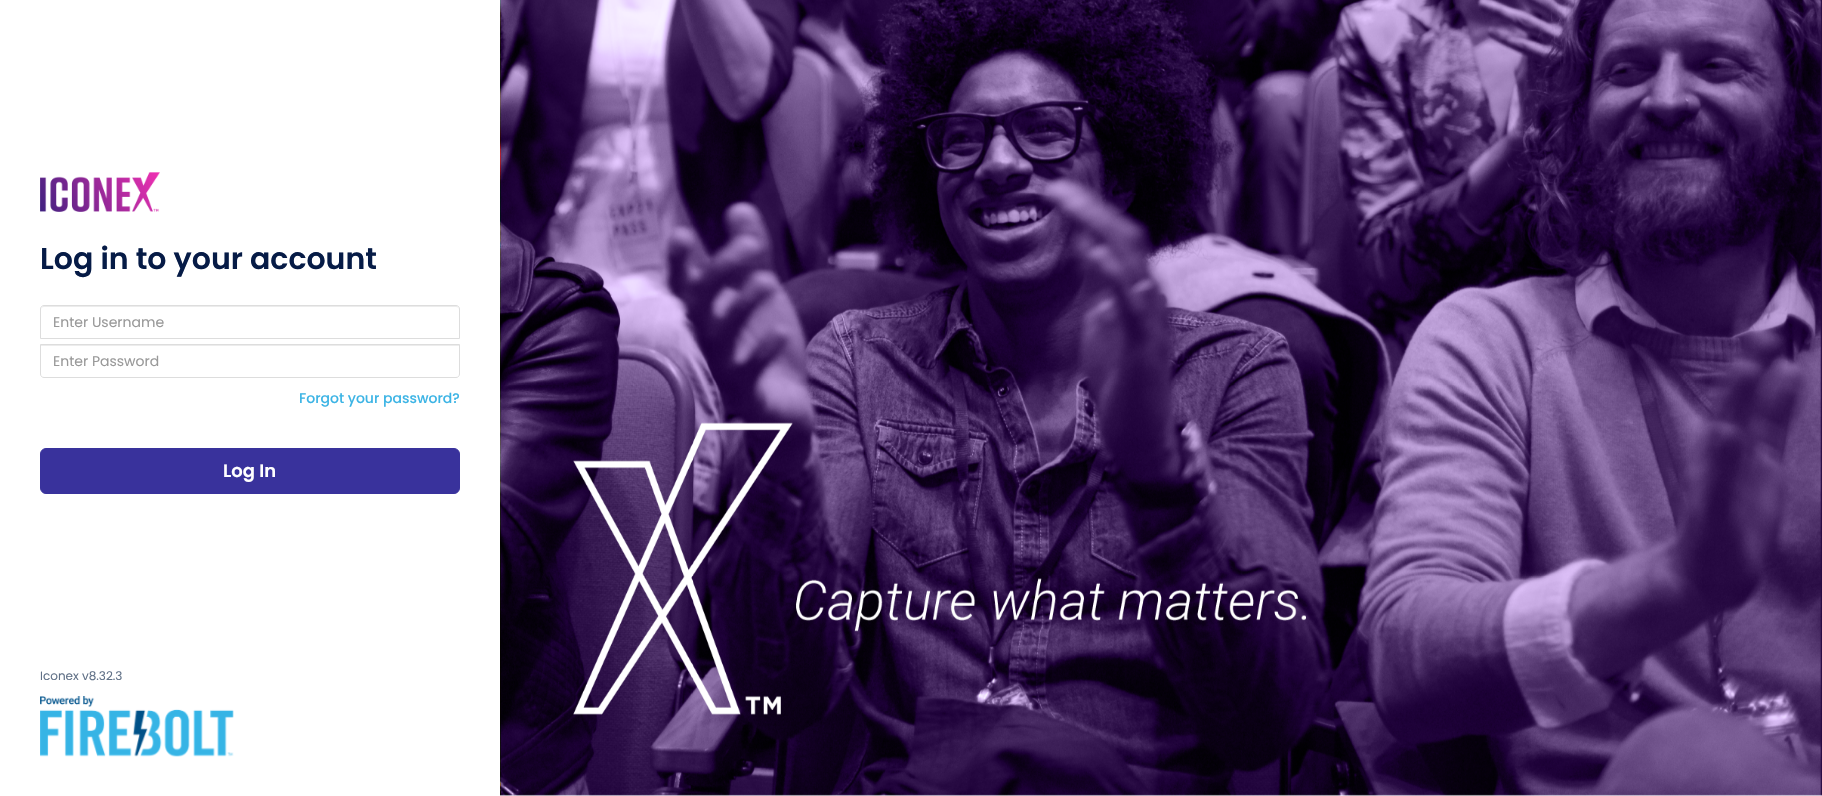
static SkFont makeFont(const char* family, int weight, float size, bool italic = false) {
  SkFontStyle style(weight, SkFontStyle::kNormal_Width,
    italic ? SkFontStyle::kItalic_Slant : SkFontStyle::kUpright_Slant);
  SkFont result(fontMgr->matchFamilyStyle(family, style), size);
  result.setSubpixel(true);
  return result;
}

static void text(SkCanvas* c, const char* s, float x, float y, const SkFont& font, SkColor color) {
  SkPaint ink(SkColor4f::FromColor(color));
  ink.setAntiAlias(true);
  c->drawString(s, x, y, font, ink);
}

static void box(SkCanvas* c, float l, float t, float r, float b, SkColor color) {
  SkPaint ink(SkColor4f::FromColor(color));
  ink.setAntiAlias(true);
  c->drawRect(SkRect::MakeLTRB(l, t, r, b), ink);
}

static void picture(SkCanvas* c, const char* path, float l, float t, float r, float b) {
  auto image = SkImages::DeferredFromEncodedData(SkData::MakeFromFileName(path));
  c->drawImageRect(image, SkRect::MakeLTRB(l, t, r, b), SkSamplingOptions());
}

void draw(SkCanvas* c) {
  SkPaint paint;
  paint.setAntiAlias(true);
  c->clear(0xffffffff);
  picture(c, "img_01.png", 40, 172, 160, 212);
  SkFont face1 = makeFont("Poppins", 600, 30);
  text(c, "Log in to your account", 40, 269, face1, 0xff061b46);
  paint.setColor(0xffececec);
  c->drawPath(SkPathBuilder().moveTo(44, 307).lineTo(456, 307).cubicTo(458, 307, 459, 308, 459, 310).cubicTo(459, 308, 458, 306, 456, 306).lineTo(44, 306).cubicTo(42, 306, 41, 308, 41, 310).cubicTo(41, 308, 42, 307, 44, 307).close().detach(), paint);
  paint.setStyle(SkPaint::kStroke_Style);
  paint.setStrokeWidth(1);
  paint.setColor(0xffdddddd);
  c->drawPath(SkPathBuilder().moveTo(44, 305.5f).lineTo(456, 305.5f).cubicTo(458, 305.5f, 459.5f, 307, 459.5f, 309).lineTo(459.5f, 338.5f).lineTo(40.5f, 338.5f).lineTo(40.5f, 309).cubicTo(40.5f, 307, 42, 305.5f, 44, 305.5f).close().detach(), paint);
  SkFont face2 = makeFont("Poppins", 400, 14);
  text(c, "Enter Username", 53, 327, face2, 0xff999999);
  box(c, 41, 345, 459, 346, 0xffececec);
  c->drawPath(SkPathBuilder().moveTo(40.5f, 344.5f).lineTo(459.5f, 344.5f).lineTo(459.5f, 374).cubicTo(459.5f, 376, 458, 377.5f, 456, 377.5f).lineTo(44, 377.5f).cubicTo(42, 377.5f, 40.5f, 376, 40.5f, 374).close().detach(), paint);
  text(c, "Enter Password", 53, 366, face2, 0xff999999);
  SkFont face3 = makeFont("Poppins", 500, 14);
  text(c, "Forgot your password?", 299, 403, face3, 0xff3cb4e5);
  paint.setStyle(SkPaint::kFill_Style);
  paint.setColor(0xff39329c);
  c->drawRoundRect(SkRect::MakeLTRB(40.5f, 448.5f, 459.5f, 493.5f), 5.5f, 5.5f, paint);
  paint.setStyle(SkPaint::kStroke_Style);
  c->drawRoundRect(SkRect::MakeLTRB(40.5f, 448.5f, 459.5f, 493.5f), 5.5f, 5.5f, paint);
  SkFont face4 = makeFont("Poppins", 600, 18);
  text(c, "Log In", 223, 477, face4, 0xffffffff);
  SkFont face5 = makeFont("Poppins", 400, 12);
  text(c, "Iconex v8.32.3", 40, 680, face5, 0xff617187);
  picture(c, "img_02.png", 40, 696, 234, 757);
  picture(c, "img_03.png", 500, 0, 1822, 796);
}
